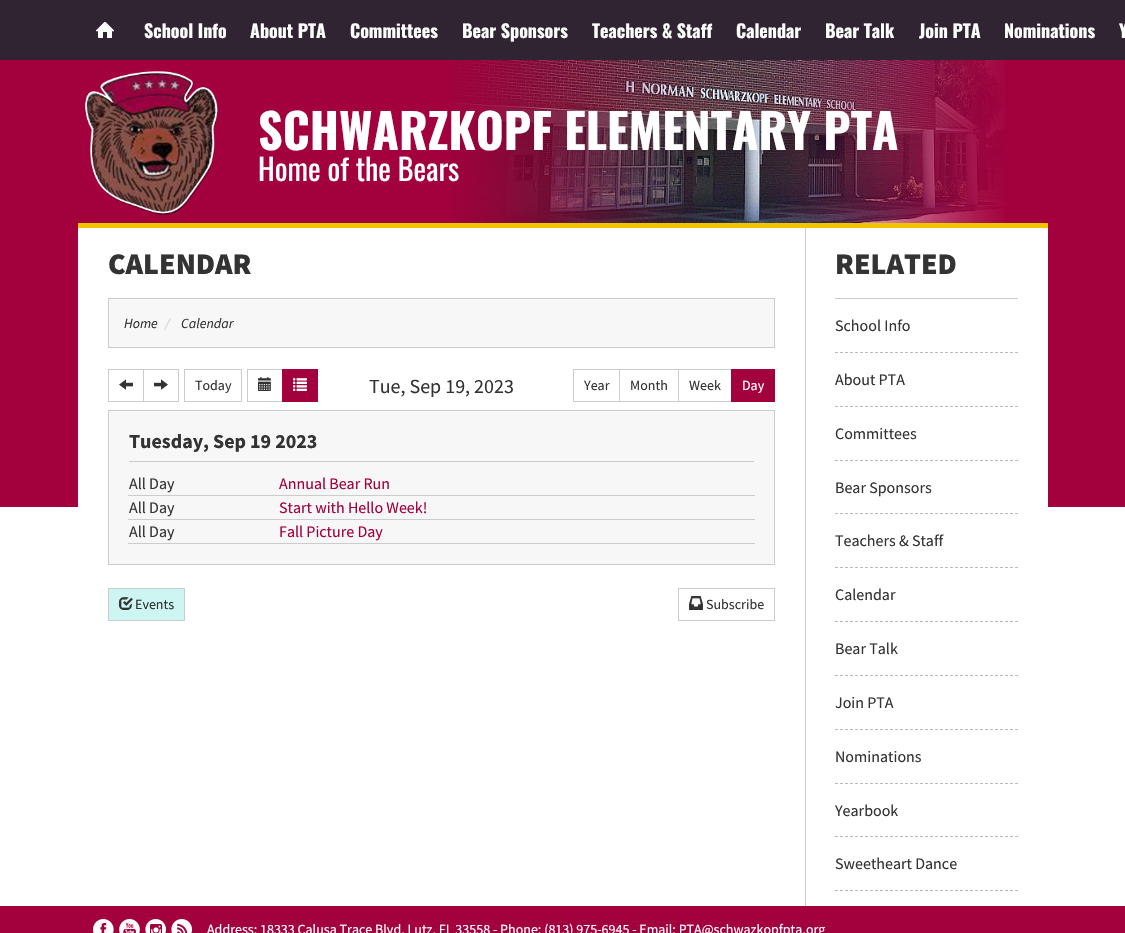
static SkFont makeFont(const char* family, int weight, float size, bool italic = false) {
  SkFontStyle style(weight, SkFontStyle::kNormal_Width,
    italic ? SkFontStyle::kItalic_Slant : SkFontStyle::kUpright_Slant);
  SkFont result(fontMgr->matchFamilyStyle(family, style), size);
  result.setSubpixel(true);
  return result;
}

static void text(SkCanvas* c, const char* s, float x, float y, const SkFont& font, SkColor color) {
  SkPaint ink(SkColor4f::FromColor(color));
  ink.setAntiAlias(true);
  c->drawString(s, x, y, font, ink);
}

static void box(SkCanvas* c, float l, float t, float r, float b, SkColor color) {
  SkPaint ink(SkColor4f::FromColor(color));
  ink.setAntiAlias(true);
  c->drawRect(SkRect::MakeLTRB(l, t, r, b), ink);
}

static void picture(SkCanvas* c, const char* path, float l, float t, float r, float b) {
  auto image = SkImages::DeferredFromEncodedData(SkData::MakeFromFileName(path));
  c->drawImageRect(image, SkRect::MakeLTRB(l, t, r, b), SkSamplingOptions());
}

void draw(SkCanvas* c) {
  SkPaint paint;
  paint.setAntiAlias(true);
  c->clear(0xff302433);
  picture(c, "img_01.png", 96, 22, 114, 38);
  SkFont face1 = makeFont("Oswald", 700, 18);
  text(c, "School Info", 144, 38, face1, 0xffffffff);
  text(c, "About PTA", 250, 38, face1, 0xffffffff);
  text(c, "Committees", 350, 38, face1, 0xffffffff);
  text(c, "Bear Sponsors", 462, 38, face1, 0xffffffff);
  text(c, "Teachers & Staff", 592, 38, face1, 0xffffffff);
  text(c, "Calendar", 736, 38, face1, 0xffffffff);
  text(c, "Bear Talk", 825, 38, face1, 0xffffffff);
  text(c, "Join PTA", 919, 38, face1, 0xffffffff);
  text(c, "Nominations", 1004, 38, face1, 0xffffffff);
  text(c, "Y", 1119, 38, face1, 0xffffffff);
  box(c, 0, 507, 1125, 906, 0xffffffff);
  box(c, 0, 60, 1125, 507, 0xffa2013e);
  picture(c, "img_02.png", 450, 60, 1005, 223);
  box(c, 78, 223, 1048, 228, 0xfff0c400);
  picture(c, "img_03.png", 85, 71, 218, 216);
  SkFont face2 = makeFont("Oswald", 700, 48);
  text(c, "SCHWARZKOPF ELEMENTARY PTA", 258, 150, face2, 0xffffffff);
  SkFont face3 = makeFont("Oswald", 400, 30);
  text(c, "Home of the Bears", 258, 181, face3, 0xffffffff);
  box(c, 78, 228, 1048, 507, 0xffffffff);
  SkFont face4 = makeFont("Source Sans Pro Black", 900, 30);
  text(c, "CALENDAR", 108, 274, face4, 0xff333333);
  paint.setColor(0xfff7f7f7);
  c->drawRect(SkRect::MakeLTRB(108.5f, 298.5f, 774.5f, 347.5f), paint);
  paint.setStyle(SkPaint::kStroke_Style);
  paint.setStrokeWidth(1);
  paint.setColor(0xffcccccc);
  c->drawRect(SkRect::MakeLTRB(108.5f, 298.5f, 774.5f, 347.5f), paint);
  SkFont face5 = makeFont("Source Sans Pro", 400, 14, true);
  text(c, "Home", 124, 328, face5, 0xff333333);
  text(c, "/", 165, 328, face5, 0xffcccccc);
  text(c, "Calendar", 181, 328, face5, 0xff333333);
  SkFont face6 = makeFont("Source Sans Pro", 400, 20);
  text(c, "Tue, Sep 19, 2023", 369, 393, face6, 0xff333333);
  c->drawRect(SkRect::MakeLTRB(108.5f, 369.5f, 143.5f, 401.5f), paint);
  picture(c, "img_04.png", 119, 379, 133, 390);
  c->drawRect(SkRect::MakeLTRB(143.5f, 369.5f, 178.5f, 401.5f), paint);
  picture(c, "img_05.png", 154, 379, 168, 390);
  c->drawRect(SkRect::MakeLTRB(184.5f, 369.5f, 241.5f, 401.5f), paint);
  SkFont face7 = makeFont("Source Sans Pro", 400, 14);
  text(c, "Today", 195, 390, face7, 0xff333333);
  c->drawRect(SkRect::MakeLTRB(247.5f, 369.5f, 282.5f, 401.5f), paint);
  picture(c, "img_06.png", 258, 377, 271, 391);
  box(c, 282, 369, 318, 402, 0xffa2013e);
  picture(c, "img_07.png", 293, 378, 307, 391);
  c->drawRect(SkRect::MakeLTRB(573.5f, 369.5f, 619.5f, 401.5f), paint);
  text(c, "Year", 584, 390, face7, 0xff333333);
  c->drawRect(SkRect::MakeLTRB(619.5f, 369.5f, 678.5f, 401.5f), paint);
  text(c, "Month", 630, 390, face7, 0xff333333);
  c->drawRect(SkRect::MakeLTRB(678.5f, 369.5f, 731.5f, 401.5f), paint);
  text(c, "Week", 689, 390, face7, 0xff333333);
  box(c, 731, 369, 775, 402, 0xffa2013e);
  text(c, "Day", 742, 390, face7, 0xffffffff);
  paint.setStyle(SkPaint::kFill_Style);
  paint.setColor(0xfff7f7f7);
  c->drawRect(SkRect::MakeLTRB(108.5f, 410.5f, 774.5f, 564.5f), paint);
  paint.setStyle(SkPaint::kStroke_Style);
  paint.setColor(0xffcccccc);
  c->drawRect(SkRect::MakeLTRB(108.5f, 410.5f, 774.5f, 564.5f), paint);
  box(c, 129, 461, 754, 462, 0xffcccccc);
  SkFont face8 = makeFont("Source Sans Pro", 700, 20);
  text(c, "Tuesday, Sep 19 2023", 129, 448, face8, 0xff333333);
  box(c, 128, 495, 755, 496, 0xffcccccc);
  SkFont face9 = makeFont("Source Sans Pro", 400, 16);
  text(c, "All Day", 129, 489, face9, 0xff333333);
  text(c, "Annual Bear Run", 279, 489, face9, 0xffa2013e);
  box(c, 128, 519, 755, 520, 0xffcccccc);
  text(c, "All Day", 129, 513, face9, 0xff333333);
  text(c, "Start with Hello Week!", 279, 513, face9, 0xffa2013e);
  box(c, 128, 543, 755, 544, 0xffcccccc);
  text(c, "All Day", 129, 537, face9, 0xff333333);
  text(c, "Fall Picture Day", 279, 537, face9, 0xffa2013e);
  paint.setStyle(SkPaint::kFill_Style);
  paint.setColor(0xffcdf6f3);
  c->drawRect(SkRect::MakeLTRB(108.5f, 588.5f, 184.5f, 620.5f), paint);
  paint.setStyle(SkPaint::kStroke_Style);
  paint.setColor(0xffcccccc);
  c->drawRect(SkRect::MakeLTRB(108.5f, 588.5f, 184.5f, 620.5f), paint);
  picture(c, "img_08.png", 119, 597, 133, 610);
  text(c, "Events", 135, 609, face7, 0xff333333);
  c->drawRect(SkRect::MakeLTRB(678.5f, 588.5f, 774.5f, 620.5f), paint);
  picture(c, "img_09.png", 689, 596, 703, 610);
  text(c, "Subscribe", 706, 609, face7, 0xff333333);
  box(c, 805, 228, 806, 906, 0xffcccccc);
  box(c, 835, 298, 1018, 299, 0xffcccccc);
  text(c, "RELATED", 835, 274, face4, 0xff333333);
  paint.setColor(0xffb9b9b9);
  paint.setPathEffect(SkDashPathEffect::Make({{3, 2}}, 0));
  c->drawPath(SkPathBuilder().moveTo(835, 352.5f).lineTo(1018, 352.5f).detach(), paint);
  paint.setPathEffect(nullptr);
  text(c, "School Info", 835, 331, face9, 0xff333333);
  paint.setPathEffect(SkDashPathEffect::Make({{3, 2}}, 0));
  c->drawPath(SkPathBuilder().moveTo(835, 406.5f).lineTo(1018, 406.5f).detach(), paint);
  paint.setPathEffect(nullptr);
  text(c, "About PTA", 835, 385, face9, 0xff333333);
  paint.setPathEffect(SkDashPathEffect::Make({{3, 2}}, 0));
  c->drawPath(SkPathBuilder().moveTo(835, 460.5f).lineTo(1018, 460.5f).detach(), paint);
  paint.setPathEffect(nullptr);
  text(c, "Committees", 835, 439, face9, 0xff333333);
  paint.setPathEffect(SkDashPathEffect::Make({{3, 2}}, 0));
  c->drawPath(SkPathBuilder().moveTo(835, 513.5f).lineTo(1018, 513.5f).detach(), paint);
  paint.setPathEffect(nullptr);
  text(c, "Bear Sponsors", 835, 493, face9, 0xff333333);
  paint.setPathEffect(SkDashPathEffect::Make({{3, 2}}, 0));
  c->drawPath(SkPathBuilder().moveTo(835, 567.5f).lineTo(1018, 567.5f).detach(), paint);
  paint.setPathEffect(nullptr);
  text(c, "Teachers & Staff", 835, 546, face9, 0xff333333);
  paint.setPathEffect(SkDashPathEffect::Make({{3, 2}}, 0));
  c->drawPath(SkPathBuilder().moveTo(835, 621.5f).lineTo(1018, 621.5f).detach(), paint);
  paint.setPathEffect(nullptr);
  text(c, "Calendar", 835, 600, face9, 0xff333333);
  paint.setPathEffect(SkDashPathEffect::Make({{3, 2}}, 0));
  c->drawPath(SkPathBuilder().moveTo(835, 675.5f).lineTo(1018, 675.5f).detach(), paint);
  paint.setPathEffect(nullptr);
  text(c, "Bear Talk", 835, 654, face9, 0xff333333);
  paint.setPathEffect(SkDashPathEffect::Make({{3, 2}}, 0));
  c->drawPath(SkPathBuilder().moveTo(835, 729.5f).lineTo(1018, 729.5f).detach(), paint);
  paint.setPathEffect(nullptr);
  text(c, "Join PTA", 835, 708, face9, 0xff333333);
  paint.setPathEffect(SkDashPathEffect::Make({{3, 2}}, 0));
  c->drawPath(SkPathBuilder().moveTo(835, 783.5f).lineTo(1018, 783.5f).detach(), paint);
  paint.setPathEffect(nullptr);
  text(c, "Nominations", 835, 762, face9, 0xff333333);
  paint.setPathEffect(SkDashPathEffect::Make({{3, 2}}, 0));
  c->drawPath(SkPathBuilder().moveTo(835, 836.5f).lineTo(1018, 836.5f).detach(), paint);
  paint.setPathEffect(nullptr);
  text(c, "Yearbook", 835, 816, face9, 0xff333333);
  paint.setPathEffect(SkDashPathEffect::Make({{3, 2}}, 0));
  c->drawPath(SkPathBuilder().moveTo(835, 890.5f).lineTo(1018, 890.5f).detach(), paint);
  paint.setPathEffect(nullptr);
  text(c, "Sweetheart Dance", 835, 869, face9, 0xff333333);
  box(c, 0, 906, 1125, 933, 0xffa2013e);
  picture(c, "img_10.png", 93, 919, 114, 933);
  picture(c, "img_11.png", 119, 919, 140, 933);
  picture(c, "img_12.png", 145, 919, 166, 933);
  picture(c, "img_13.png", 171, 919, 192, 933);
  text(c, "Address: 18333 Calusa Trace Blvd, Lutz, FL 33558 - Phone: (813) 975-6945 - Email: PTA@schwazkopfpta.org", 207, 934, face7, 0xffffffff);
}
